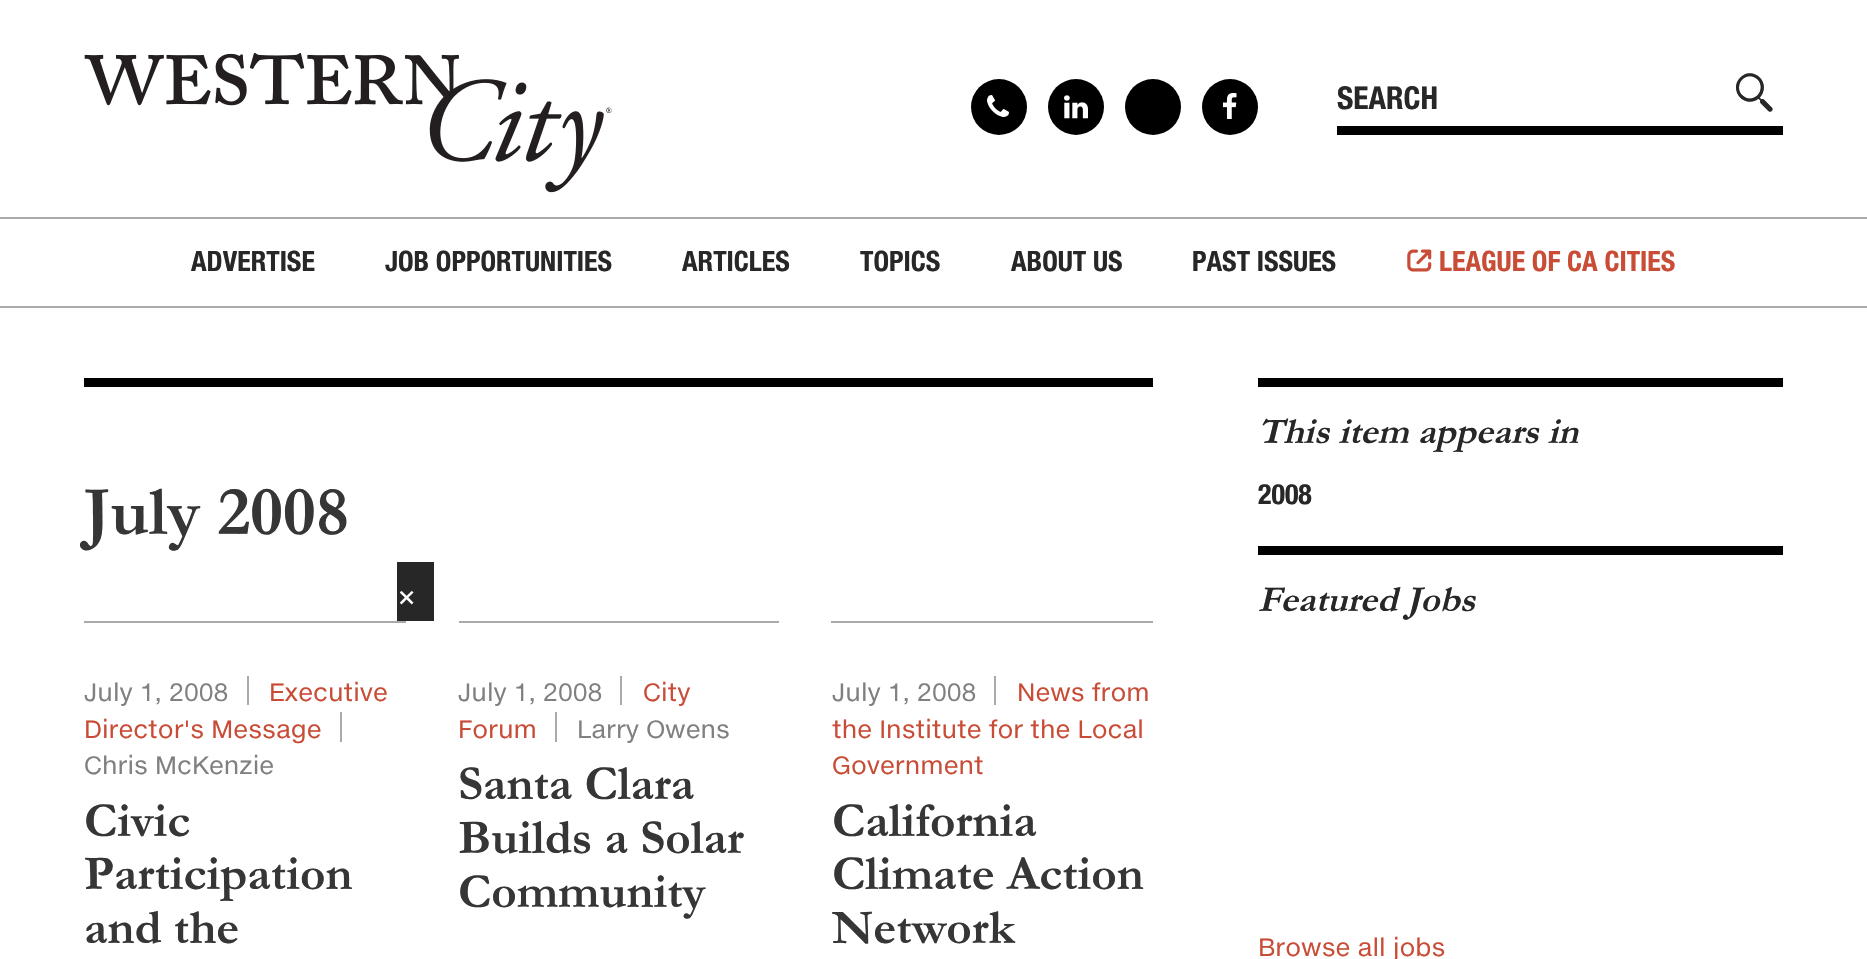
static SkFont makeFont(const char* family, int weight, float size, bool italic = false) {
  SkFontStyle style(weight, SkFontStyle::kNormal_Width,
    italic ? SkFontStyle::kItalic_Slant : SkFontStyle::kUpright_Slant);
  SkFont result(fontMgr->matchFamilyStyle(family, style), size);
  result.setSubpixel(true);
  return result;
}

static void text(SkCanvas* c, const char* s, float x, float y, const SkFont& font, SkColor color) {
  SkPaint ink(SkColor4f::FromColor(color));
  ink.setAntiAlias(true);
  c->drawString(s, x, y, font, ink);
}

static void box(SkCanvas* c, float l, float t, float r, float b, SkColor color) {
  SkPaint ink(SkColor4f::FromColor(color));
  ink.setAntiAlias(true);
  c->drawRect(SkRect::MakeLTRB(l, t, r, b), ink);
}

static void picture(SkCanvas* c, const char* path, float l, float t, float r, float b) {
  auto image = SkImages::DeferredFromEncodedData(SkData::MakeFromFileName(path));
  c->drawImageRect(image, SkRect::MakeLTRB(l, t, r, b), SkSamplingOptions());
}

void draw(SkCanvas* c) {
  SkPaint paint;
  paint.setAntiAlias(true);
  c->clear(0xffffffff);
  box(c, 0, 306, 1867, 308, 0xffaaaaaa);
  picture(c, "img_01.png", 84, 53, 612, 193);
  paint.setColor(0xff000000);
  c->drawCircle(999, 107, 28, paint);
  picture(c, "img_02.png", 987, 95, 1009, 117);
  c->drawCircle(1076, 107, 28, paint);
  picture(c, "img_03.png", 1064, 95, 1088, 119);
  c->drawCircle(1153, 107, 28, paint);
  c->drawCircle(1230, 107, 28, paint);
  picture(c, "img_04.png", 1222, 93, 1237, 119);
  box(c, 1337, 126, 1783, 135, 0xff000000);
  SkFont face1 = makeFont("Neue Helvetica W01", 700, 31.5f);
  text(c, "SEARCH", 1337, 109, face1, 0xff272727);
  SkFont face2 = makeFont("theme", 400, 56);
  text(c, "?", 1727, 117, face2, 0xff272727);
  SkFont face3 = makeFont("Neue Helvetica W01", 700, 28);
  text(c, "ADVERTISE", 191, 271, face3, 0xff272727);
  text(c, "JOB OPPORTUNITIES", 385, 271, face3, 0xff272727);
  text(c, "ARTICLES", 682, 271, face3, 0xff272727);
  text(c, "TOPICS", 860, 271, face3, 0xff272727);
  text(c, "ABOUT US", 1011, 271, face3, 0xff272727);
  text(c, "PAST ISSUES", 1192, 271, face3, 0xff272727);
  picture(c, "img_05.png", 1407, 249, 1432, 272);
  text(c, "LEAGUE OF CA CITIES", 1439, 271, face3, 0xffc94c36);
  box(c, 0, 217, 1867, 219, 0xffaaaaaa);
  box(c, 84, 378, 1153, 387, 0xff000000);
  SkFont face4 = makeFont("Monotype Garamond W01", 700, 70);
  text(c, "July 2008", 84, 534, face4, 0xff363636);
  box(c, 397, 562, 434, 621, 0xff272727);
  SkFont face5 = makeFont("DejaVu Sans", 400, 23);
  text(c, "✕", 397, 606, face5, 0xffffffff);
  box(c, 84, 621, 406, 623, 0xffaaaaaa);
  SkFont face6 = makeFont("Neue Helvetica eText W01", 400, 24.5f);
  text(c, "July 1, 2008", 84, 701, face6, 0xff808080);
  text(c, "Executive", 269, 701, face6, 0xffc94c36);
  box(c, 247, 676, 249, 705, 0xffaaaaaa);
  text(c, "Director's Message", 84, 738, face6, 0xffc94c36);
  box(c, 340, 712, 342, 742, 0xffaaaaaa);
  text(c, "Chris McKenzie", 84, 774, face6, 0xff808080);
  SkFont face7 = makeFont("Monotype Garamond W01", 700, 49);
  text(c, "Civic", 84, 836, face7, 0xff363636);
  text(c, "Participation", 84, 889, face7, 0xff363636);
  text(c, "and the", 84, 943, face7, 0xff363636);
  box(c, 459, 621, 779, 623, 0xffaaaaaa);
  text(c, "July 1, 2008", 458, 701, face6, 0xff808080);
  box(c, 620, 676, 622, 705, 0xffaaaaaa);
  text(c, "City", 643, 701, face6, 0xffc94c36);
  text(c, "Forum", 458, 738, face6, 0xffc94c36);
  box(c, 555, 712, 557, 742, 0xffaaaaaa);
  text(c, "Larry Owens", 577, 738, face6, 0xff808080);
  text(c, "Santa Clara", 458, 799, face7, 0xff363636);
  text(c, "Builds a Solar", 458, 853, face7, 0xff363636);
  text(c, "Community", 458, 907, face7, 0xff363636);
  box(c, 831, 621, 1153, 623, 0xffaaaaaa);
  text(c, "July 1, 2008", 832, 701, face6, 0xff808080);
  text(c, "News from", 1017, 701, face6, 0xffc94c36);
  box(c, 994, 676, 996, 705, 0xffaaaaaa);
  text(c, "the Institute for the Local", 832, 738, face6, 0xffc94c36);
  text(c, "Government", 832, 774, face6, 0xffc94c36);
  text(c, "California", 832, 836, face7, 0xff363636);
  text(c, "Climate Action", 832, 889, face7, 0xff363636);
  text(c, "Network", 832, 943, face7, 0xff363636);
  box(c, 1258, 378, 1783, 387, 0xff000000);
  SkFont face8 = makeFont("Monotype Garamond W01", 700, 36.75f, true);
  text(c, "This item appears in", 1258, 443, face8, 0xff272727);
  text(c, "2008", 1258, 504, face3, 0xff272727);
  box(c, 1258, 546, 1783, 555, 0xff000000);
  text(c, "Featured Jobs", 1258, 611, face8, 0xff272727);
  text(c, "Browse all jobs", 1258, 956, face6, 0xffc94c36);
}
